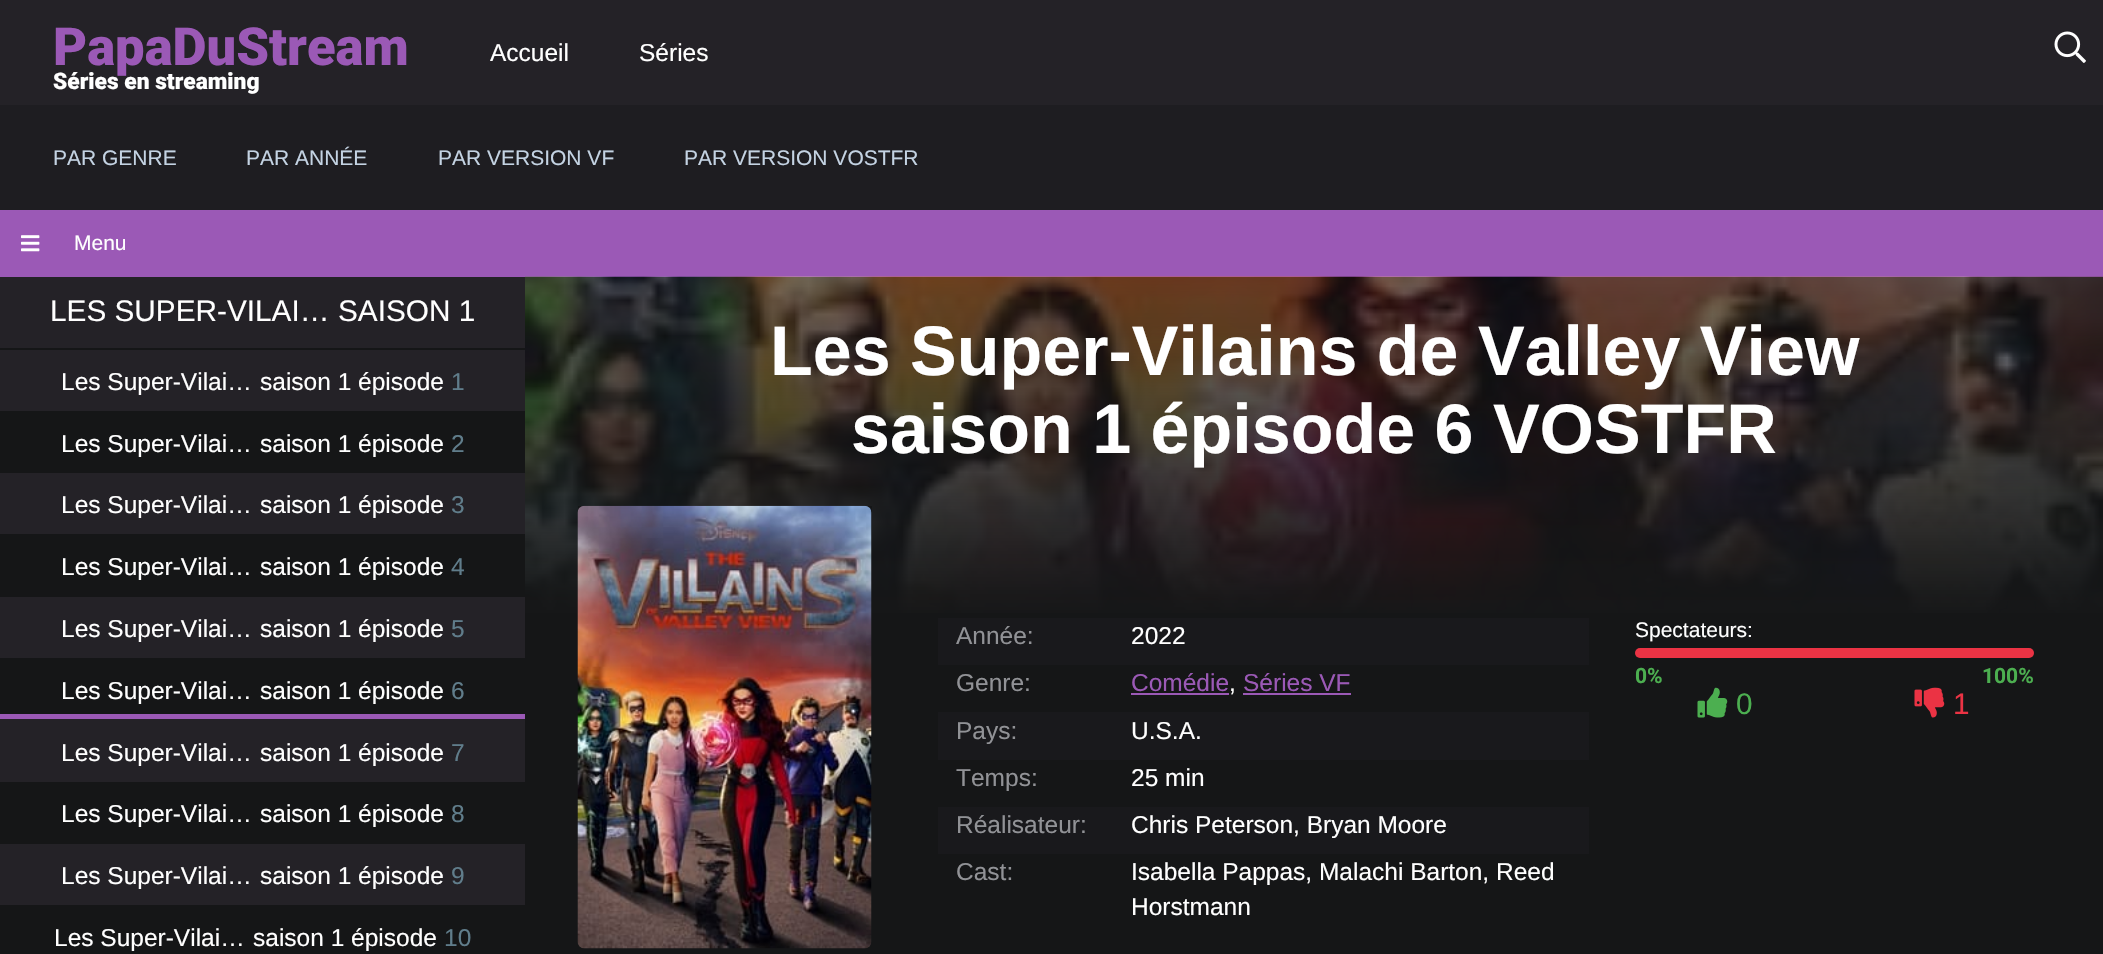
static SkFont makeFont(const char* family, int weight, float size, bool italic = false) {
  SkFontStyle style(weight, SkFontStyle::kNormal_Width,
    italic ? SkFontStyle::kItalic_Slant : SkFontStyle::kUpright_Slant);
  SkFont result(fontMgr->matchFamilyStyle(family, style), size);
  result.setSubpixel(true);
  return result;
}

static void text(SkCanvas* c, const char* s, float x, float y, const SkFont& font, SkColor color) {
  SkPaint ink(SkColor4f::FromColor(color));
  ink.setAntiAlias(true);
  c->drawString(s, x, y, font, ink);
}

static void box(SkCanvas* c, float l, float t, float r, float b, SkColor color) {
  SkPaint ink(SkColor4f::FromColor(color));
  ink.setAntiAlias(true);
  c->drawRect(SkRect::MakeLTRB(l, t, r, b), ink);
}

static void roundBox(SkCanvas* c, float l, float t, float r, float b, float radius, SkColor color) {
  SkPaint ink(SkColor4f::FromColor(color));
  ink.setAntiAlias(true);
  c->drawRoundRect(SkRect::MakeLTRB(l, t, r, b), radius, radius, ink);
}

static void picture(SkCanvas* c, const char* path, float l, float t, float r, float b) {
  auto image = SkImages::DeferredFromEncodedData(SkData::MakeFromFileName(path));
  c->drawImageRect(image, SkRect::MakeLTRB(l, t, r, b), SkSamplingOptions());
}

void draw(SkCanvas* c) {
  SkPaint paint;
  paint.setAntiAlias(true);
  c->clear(0xff151617);
  box(c, 0, 0, 2103, 105, 0xff242227);
  SkFont face1 = makeFont("Roboto", 900, 52.5f);
  text(c, "PapaDuStream", 53, 65, face1, 0xff9b59b6);
  SkFont face2 = makeFont("Roboto", 900, 22.75f);
  text(c, "Séries en streaming", 53, 89, face2, 0xffffffff);
  SkFont face3 = makeFont("Liberation Sans", 400, 24.5f);
  text(c, "Accueil", 490, 61, face3, 0xffffffff);
  text(c, "Séries", 639, 61, face3, 0xffffffff);
  picture(c, "img_01.png", 2054, 31, 2086, 63);
  box(c, 0, 105, 2103, 210, 0xff1e1d21);
  SkFont face4 = makeFont("Liberation Sans", 400, 21);
  text(c, "PAR GENRE", 53, 165, face4, 0xffc4d3e3);
  text(c, "PAR ANNÉE", 246, 165, face4, 0xffc4d3e3);
  text(c, "PAR VERSION VF", 438, 165, face4, 0xffc4d3e3);
  text(c, "PAR VERSION VOSTFR", 684, 165, face4, 0xffc4d3e3);
  box(c, 0, 210, 2103, 277, 0xff9b59b6);
  picture(c, "img_02.png", 21, 235, 40, 252);
  text(c, "Menu", 74, 250, face4, 0xffffffff);
  box(c, 0, 277, 525, 905, 0xff242227);
  box(c, 0, 348, 525, 350, 0xff151617);
  SkFont face5 = makeFont("Liberation Sans", 400, 29.75f);
  text(c, "LES SUPER-VILAI…", 50, 321, face5, 0xffffffff);
  text(c, "SAISON 1", 338, 321, face5, 0xffffffff);
  text(c, "Les Super-Vilai…", 61, 390, face3, 0xffffffff);
  text(c, "saison 1 épisode", 260, 390, face3, 0xffffffff);
  text(c, "1", 451, 390, face3, 0xff607d8b);
  box(c, 0, 411, 525, 473, 0xff151617);
  text(c, "Les Super-Vilai…", 61, 452, face3, 0xffffffff);
  text(c, "saison 1 épisode", 260, 452, face3, 0xffffffff);
  text(c, "2", 451, 452, face3, 0xff607d8b);
  text(c, "Les Super-Vilai…", 61, 513, face3, 0xffffffff);
  text(c, "saison 1 épisode", 260, 513, face3, 0xffffffff);
  text(c, "3", 451, 513, face3, 0xff607d8b);
  box(c, 0, 534, 525, 597, 0xff151617);
  text(c, "Les Super-Vilai…", 61, 575, face3, 0xffffffff);
  text(c, "saison 1 épisode", 260, 575, face3, 0xffffffff);
  text(c, "4", 451, 575, face3, 0xff607d8b);
  text(c, "Les Super-Vilai…", 61, 637, face3, 0xffffffff);
  text(c, "saison 1 épisode", 260, 637, face3, 0xffffffff);
  text(c, "5", 451, 637, face3, 0xff607d8b);
  box(c, 0, 658, 525, 714, 0xff151617);
  box(c, 0, 714, 525, 719, 0xff9b59b6);
  text(c, "Les Super-Vilai…", 61, 699, face3, 0xffffffff);
  text(c, "saison 1 épisode", 260, 699, face3, 0xffffffff);
  text(c, "6", 451, 699, face3, 0xff607d8b);
  text(c, "Les Super-Vilai…", 61, 761, face3, 0xffffffff);
  text(c, "saison 1 épisode", 260, 761, face3, 0xffffffff);
  text(c, "7", 451, 761, face3, 0xff607d8b);
  box(c, 0, 782, 525, 844, 0xff151617);
  text(c, "Les Super-Vilai…", 61, 822, face3, 0xffffffff);
  text(c, "saison 1 épisode", 260, 822, face3, 0xffffffff);
  text(c, "8", 451, 822, face3, 0xff607d8b);
  text(c, "Les Super-Vilai…", 61, 884, face3, 0xffffffff);
  text(c, "saison 1 épisode", 260, 884, face3, 0xffffffff);
  text(c, "9", 451, 884, face3, 0xff607d8b);
  text(c, "Les Super-Vilai…", 54, 946, face3, 0xffffffff);
  text(c, "saison 1 épisode", 253, 946, face3, 0xffffffff);
  text(c, "10", 444, 946, face3, 0xff607d8b);
  picture(c, "img_03.png", 525, 276, 2103, 613);
  {
    const SkColor colors[] = {0x96151617, 0xff151617};
    const float stops[] = {0, 1};
    const SkPoint ends[] = {{1314, 276}, {1314, 618}};
    paint.setShader(SkGradientShader::MakeLinear(ends, colors, stops, 2, SkTileMode::kClamp));
    paint.setAlpha(255);
  }
  c->drawRect(SkRect::MakeLTRB(525, 277, 2103, 613), paint);
  SkFont face6 = makeFont("Liberation Sans", 700, 70);
  text(c, "Les Super-Vilains de Valley View", 770, 375, face6, 0xffffffff);
  text(c, "saison 1 épisode 6 VOSTFR", 851, 453, face6, 0xffffffff);
  box(c, 578, 506, 872, 607, 0xff151617);
  picture(c, "img_04.png", 577, 505, 872, 949);
  box(c, 938, 618, 1589, 665, 0xff19191c);
  text(c, "Année:", 956, 644, face3, 0xff919296);
  text(c, "2022", 1131, 644, face3, 0xffffffff);
  text(c, "Genre:", 956, 691, face3, 0xff919296);
  text(c, "Comédie", 1131, 691, face3, 0xff9b59b6);
  box(c, 1131, 693, 1229, 695, 0xff9b59b6);
  text(c, ",", 1229, 691, face3, 0xffffffff);
  text(c, "Séries VF", 1243, 691, face3, 0xff9b59b6);
  box(c, 1243, 693, 1351, 695, 0xff9b59b6);
  box(c, 938, 712, 1589, 760, 0xff19191c);
  text(c, "Pays:", 956, 739, face3, 0xff919296);
  text(c, "U.S.A.", 1131, 739, face3, 0xffffffff);
  text(c, "Temps:", 956, 786, face3, 0xff919296);
  text(c, "25 min", 1131, 786, face3, 0xffffffff);
  box(c, 938, 807, 1589, 854, 0xff19191c);
  text(c, "Réalisateur:", 956, 833, face3, 0xff919296);
  text(c, "Chris Peterson, Bryan Moore", 1131, 833, face3, 0xffffffff);
  text(c, "Cast:", 956, 880, face3, 0xff919296);
  text(c, "Isabella Pappas, Malachi Barton, Reed", 1131, 880, face3, 0xffffffff);
  text(c, "Horstmann", 1131, 915, face3, 0xffffffff);
  text(c, "Spectateurs:", 1635, 637, face4, 0xffffffff);
  roundBox(c, 1635, 648, 2034, 658, 5, 0xffeb3344);
  SkFont face7 = makeFont("Roboto", 700, 21);
  text(c, "0%", 1635, 683, face7, 0xff4caf50);
  text(c, "100%", 1982, 683, face7, 0xff4caf50);
  picture(c, "img_05.png", 1697, 687, 1728, 718);
  text(c, "0", 1736, 714, face5, 0xff4caf50);
  picture(c, "img_06.png", 1914, 687, 1945, 718);
  text(c, "1", 1953, 714, face5, 0xffeb3344);
}
